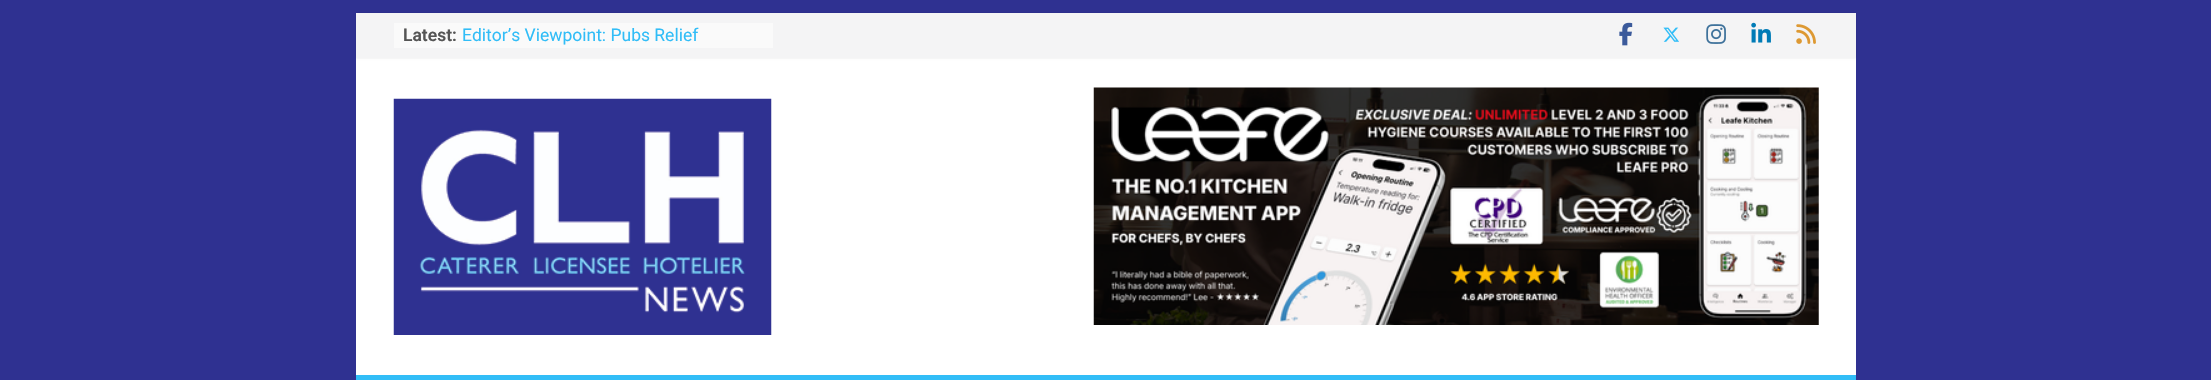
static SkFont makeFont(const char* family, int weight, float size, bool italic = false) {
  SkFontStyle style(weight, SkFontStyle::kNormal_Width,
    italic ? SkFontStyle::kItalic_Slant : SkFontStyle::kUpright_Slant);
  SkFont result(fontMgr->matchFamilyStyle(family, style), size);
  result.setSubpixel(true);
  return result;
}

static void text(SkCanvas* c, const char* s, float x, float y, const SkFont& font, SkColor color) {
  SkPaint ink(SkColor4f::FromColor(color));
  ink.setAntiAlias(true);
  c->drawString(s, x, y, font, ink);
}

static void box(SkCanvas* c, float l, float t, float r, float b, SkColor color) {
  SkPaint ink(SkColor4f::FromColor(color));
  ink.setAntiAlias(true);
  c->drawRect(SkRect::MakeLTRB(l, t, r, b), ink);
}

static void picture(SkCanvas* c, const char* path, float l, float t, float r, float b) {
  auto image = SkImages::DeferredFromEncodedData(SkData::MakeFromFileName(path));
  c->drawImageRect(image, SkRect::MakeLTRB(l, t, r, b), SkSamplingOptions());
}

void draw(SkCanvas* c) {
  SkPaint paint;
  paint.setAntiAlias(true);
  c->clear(0xff2f3191);
  box(c, 356, 58, 1856, 375, 0xffffffff);
  paint.setColor(0x1a000000);
  paint.setMaskFilter(SkMaskFilter::MakeBlur(kNormal_SkBlurStyle, 1));
  c->drawRect(SkRect::MakeLTRB(356, 13, 1856, 58), paint);
  paint.setMaskFilter(nullptr);
  box(c, 356, 13, 1856, 58, 0xfff4f4f5);
  box(c, 394, 23, 773, 48, 0xfffafafa);
  SkFont face1 = makeFont("Roboto", 600, 17.5f);
  text(c, "Latest:", 403, 41, face1, 0xff555555);
  SkFont face2 = makeFont("Roboto", 400, 17.5f);
  text(c, "Editor’s Viewpoint: Pubs Relief", 462, 41, face2, 0xff31bdf7);
  picture(c, "img_01.png", 1619, 22, 1633, 46);
  picture(c, "img_02.png", 1663, 27, 1679, 42);
  picture(c, "img_03.png", 1706, 24, 1726, 44);
  picture(c, "img_04.png", 1751, 22, 1771, 43);
  picture(c, "img_05.png", 1796, 24, 1816, 44);
  picture(c, "img_06.png", 393, 98, 772, 335);
  picture(c, "img_07.png", 1093, 87, 1819, 325);
  box(c, 356, 375, 1856, 380, 0xff31bdf7);
}
